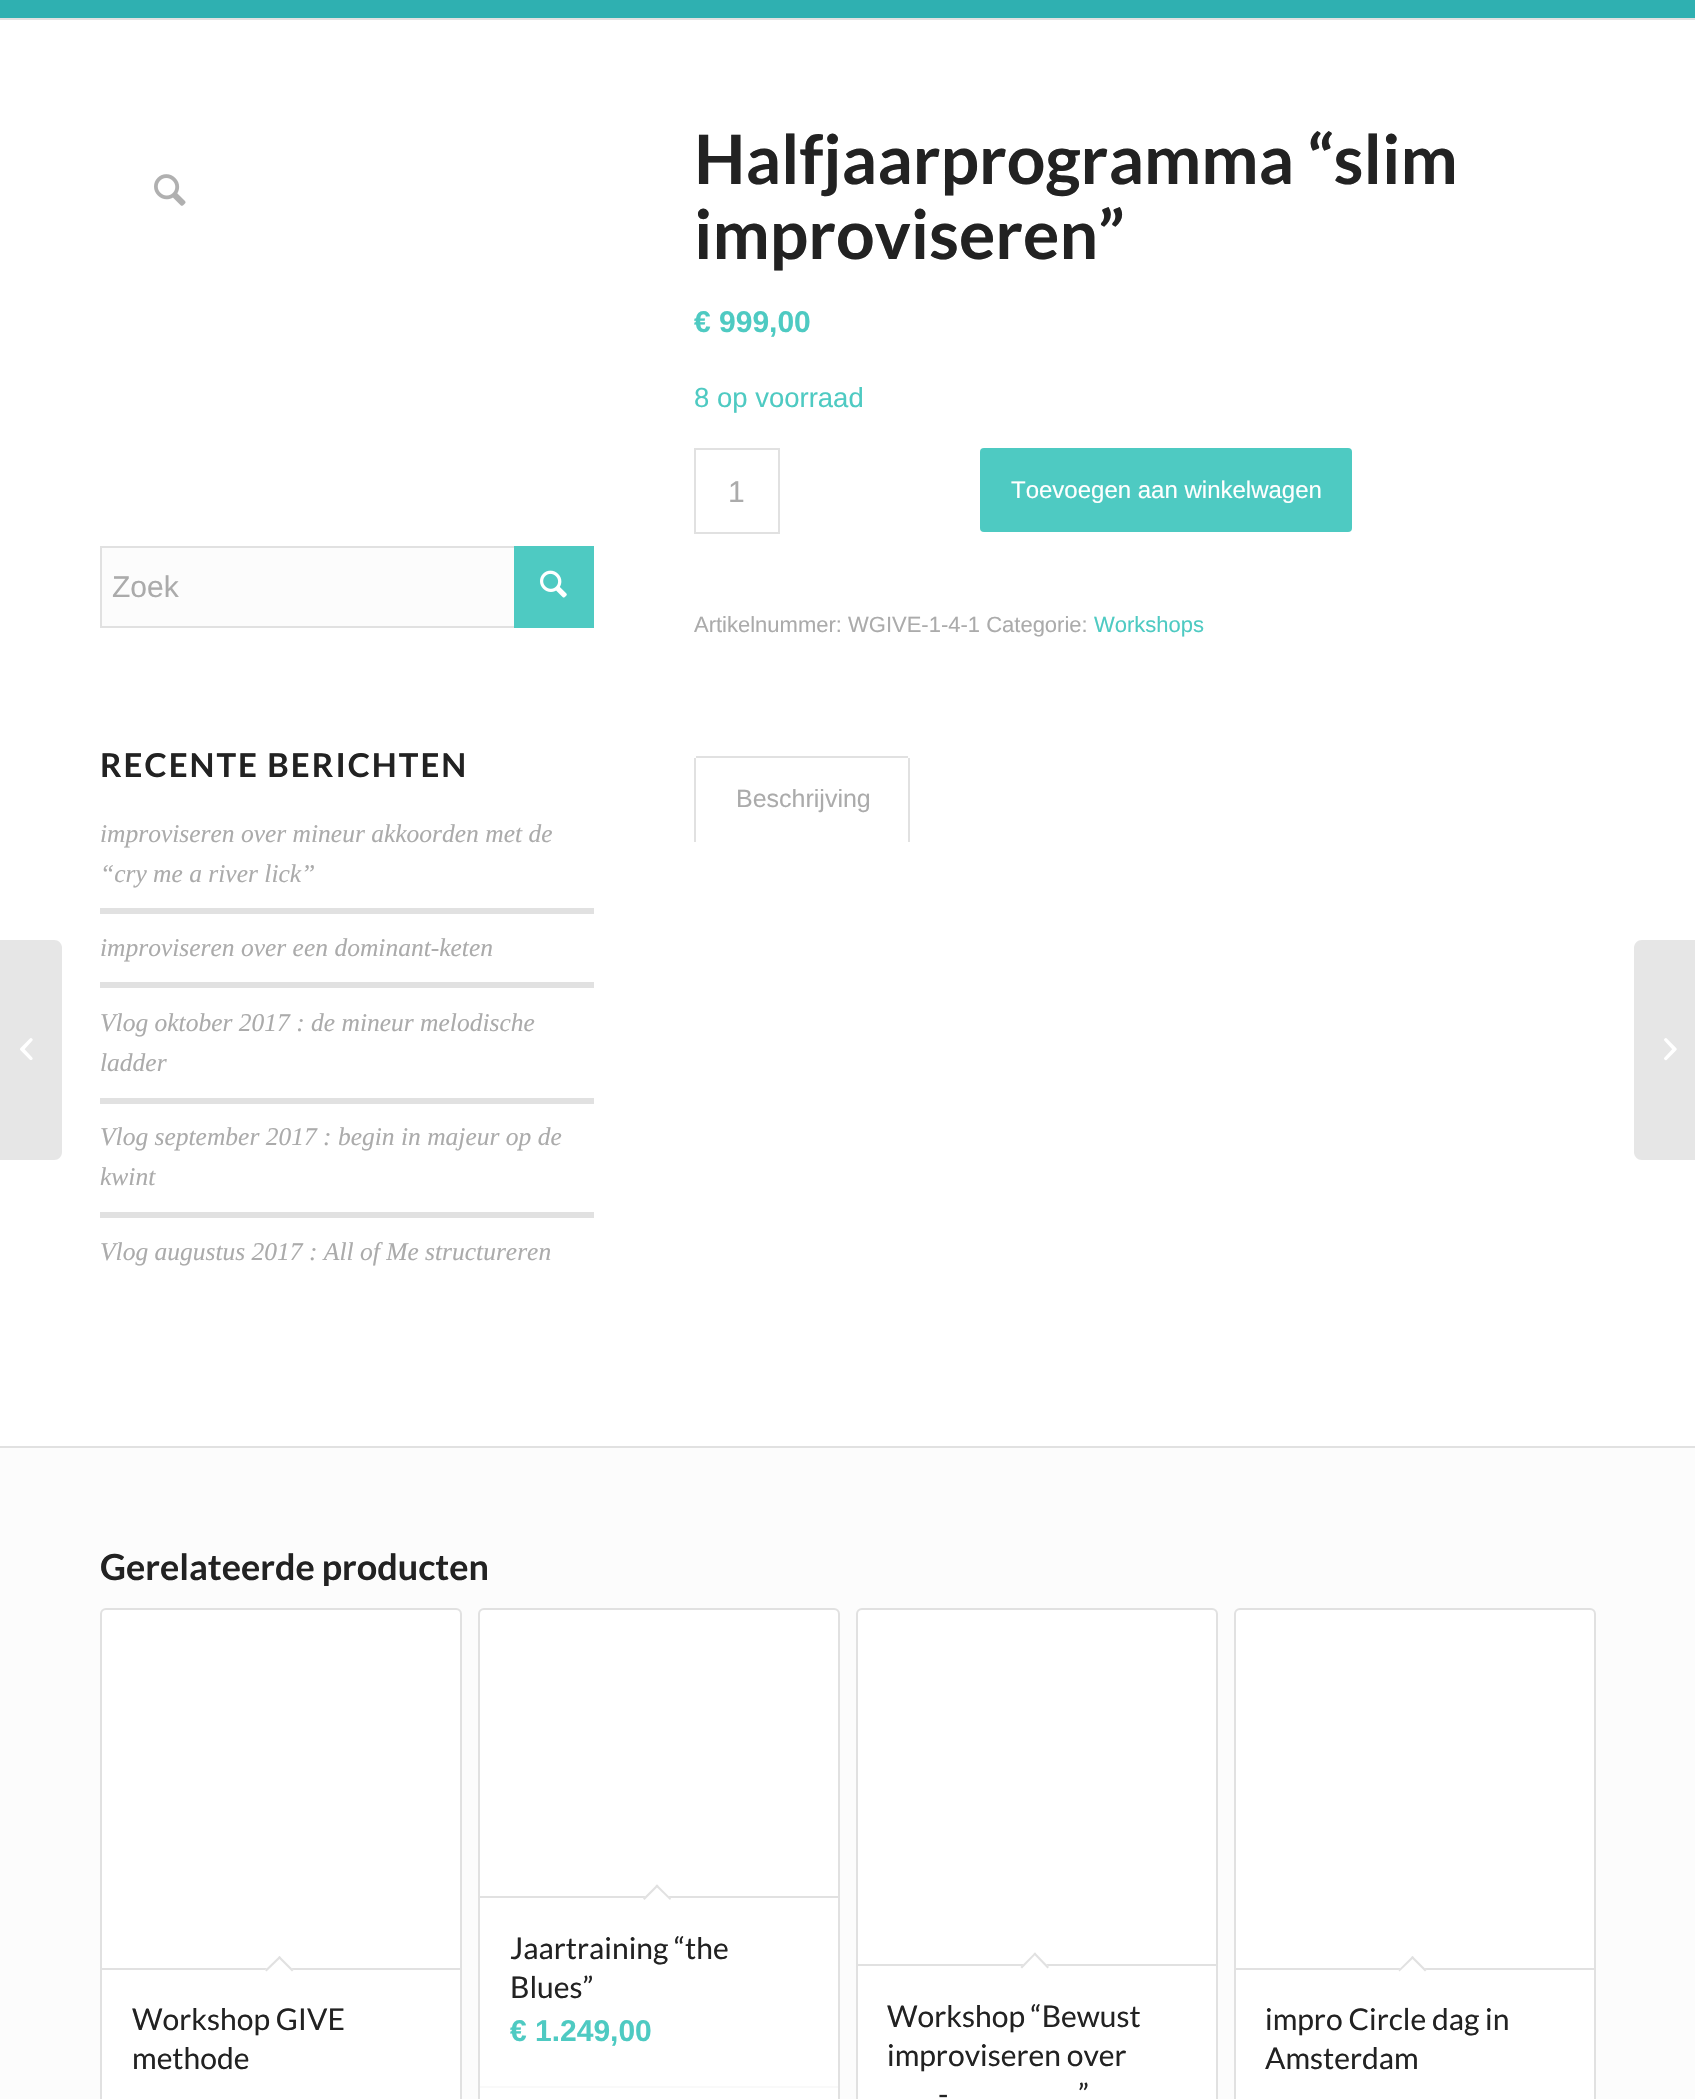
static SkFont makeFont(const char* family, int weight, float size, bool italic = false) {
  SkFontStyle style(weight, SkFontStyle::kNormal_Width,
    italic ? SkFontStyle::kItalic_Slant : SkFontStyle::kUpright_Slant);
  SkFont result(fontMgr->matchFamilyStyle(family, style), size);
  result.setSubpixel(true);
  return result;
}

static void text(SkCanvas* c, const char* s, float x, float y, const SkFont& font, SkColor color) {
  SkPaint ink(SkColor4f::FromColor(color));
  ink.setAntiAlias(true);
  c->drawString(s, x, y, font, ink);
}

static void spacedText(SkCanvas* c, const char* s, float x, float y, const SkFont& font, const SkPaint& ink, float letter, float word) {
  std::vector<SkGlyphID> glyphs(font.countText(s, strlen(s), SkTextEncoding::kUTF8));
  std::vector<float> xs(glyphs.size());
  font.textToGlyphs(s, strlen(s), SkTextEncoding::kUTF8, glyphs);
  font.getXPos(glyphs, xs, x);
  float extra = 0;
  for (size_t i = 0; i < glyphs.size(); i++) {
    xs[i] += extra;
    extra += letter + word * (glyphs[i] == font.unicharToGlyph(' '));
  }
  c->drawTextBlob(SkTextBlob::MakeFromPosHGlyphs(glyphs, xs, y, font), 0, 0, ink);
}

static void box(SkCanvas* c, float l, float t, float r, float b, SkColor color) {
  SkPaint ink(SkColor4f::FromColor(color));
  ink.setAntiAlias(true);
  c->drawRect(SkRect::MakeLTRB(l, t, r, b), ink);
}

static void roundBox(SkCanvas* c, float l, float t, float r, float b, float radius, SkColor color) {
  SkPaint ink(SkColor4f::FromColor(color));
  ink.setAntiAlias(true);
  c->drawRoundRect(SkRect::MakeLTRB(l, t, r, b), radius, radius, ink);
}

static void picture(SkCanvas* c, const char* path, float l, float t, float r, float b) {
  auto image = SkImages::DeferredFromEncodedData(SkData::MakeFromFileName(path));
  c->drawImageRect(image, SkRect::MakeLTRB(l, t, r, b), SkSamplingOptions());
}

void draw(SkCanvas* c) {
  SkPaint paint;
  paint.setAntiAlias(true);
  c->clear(0xfffcfcfc);
  box(c, 0, 20, 1695, 1446, 0xffffffff);
  paint.setColor(0xffe6e6e6);
  c->drawPath(SkPathBuilder().moveTo(0, 940).lineTo(54, 940).cubicTo(58.5f, 940, 62, 943.5f, 62, 948).lineTo(62, 1152).cubicTo(62, 1156.5f, 58.5f, 1160, 54, 1160).lineTo(0, 1160).close().detach(), paint);
  picture(c, "img_01.png", 20, 1038, 33, 1060);
  box(c, 0, 0, 1695, 18, 0xff2fb0b1);
  box(c, 0, 18, 1695, 20, 0xffe1e1e1);
  SkFont face1 = makeFont("Lato", 700, 68);
  text(c, "Halfjaarprogramma “slim", 694, 184, face1, 0xff222222);
  text(c, "improviseren”", 694, 259, face1, 0xff222222);
  SkFont face2 = makeFont("Liberation Sans", 700, 30);
  text(c, "€ 999,00", 694, 332, face2, 0xff4ecac2);
  SkFont face3 = makeFont("Liberation Sans", 400, 27.5f);
  text(c, "8 op voorraad", 694, 407, face3, 0xff4ecac2);
  paint.setStyle(SkPaint::kStroke_Style);
  paint.setStrokeWidth(2);
  paint.setColor(0xffe1e1e1);
  c->drawRect(SkRect::MakeLTRB(695, 449, 779, 533), paint);
  SkFont face4 = makeFont("Liberation Sans", 400, 30);
  text(c, "1", 728, 502, face4, 0xffababab);
  roundBox(c, 980, 448, 1352, 532, 4, 0xff4ecac2);
  SkFont face5 = makeFont("Liberation Sans", 400, 24);
  text(c, "Toevoegen aan winkelwagen", 1011, 498, face5, 0xffffffff);
  SkFont face6 = makeFont("Liberation Sans", 400, 22);
  text(c, "Artikelnummer: WGIVE-1-4-1 Categorie:", 694, 632, face6, 0xffababab);
  text(c, "Workshops", 1094, 632, face6, 0xff4ecac2);
  box(c, 696, 756, 908, 758, 0xffe1e1e1);
  box(c, 908, 758, 910, 842, 0xffe1e1e1);
  box(c, 694, 758, 696, 842, 0xffe1e1e1);
  SkFont face7 = makeFont("Liberation Sans", 400, 25);
  text(c, "Beschrijving", 736, 807, face7, 0xffababab);
  picture(c, "img_02.png", 154, 174, 186, 206);
  box(c, 102, 548, 514, 626, 0xfffcfcfc);
  c->drawRect(SkRect::MakeLTRB(101, 547, 593, 627), paint);
  text(c, "Zoek", 112, 597, face4, 0xffababab);
  box(c, 514, 546, 594, 628, 0xff4ecac2);
  picture(c, "img_03.png", 540, 570, 567, 598);
  SkFont face8 = makeFont("Lato", 700, 33);
  paint.setStyle(SkPaint::kFill_Style);
  paint.setColor(0xff222222);
  spacedText(c, "RECENTE BERICHTEN", 100, 777, face8, paint, 2, 0);
  SkFont face9 = makeFont("Liberation Serif", 400, 25.5f, true);
  text(c, "improviseren over mineur akkoorden met de", 100, 842, face9, 0xffababab);
  text(c, "“cry me a river lick”", 100, 882, face9, 0xffababab);
  box(c, 100, 908, 594, 914, 0xffe1e1e1);
  text(c, "improviseren over een dominant-keten", 100, 956, face9, 0xffababab);
  box(c, 100, 982, 594, 988, 0xffe1e1e1);
  text(c, "Vlog oktober 2017 : de mineur melodische", 100, 1031, face9, 0xffababab);
  text(c, "ladder", 100, 1071, face9, 0xffababab);
  box(c, 100, 1098, 594, 1104, 0xffe1e1e1);
  text(c, "Vlog september 2017 : begin in majeur op de", 100, 1145, face9, 0xffababab);
  text(c, "kwint", 100, 1185, face9, 0xffababab);
  box(c, 100, 1212, 594, 1218, 0xffe1e1e1);
  text(c, "Vlog augustus 2017 : All of Me structureren", 100, 1260, face9, 0xffababab);
  box(c, 0, 1446, 1695, 1448, 0xffe1e1e1);
  SkFont face10 = makeFont("Lato", 700, 36);
  text(c, "Gerelateerde producten", 100, 1580, face10, 0xff222222);
  paint.setColor(0xffffffff);
  c->drawRoundRect(SkRect::MakeLTRB(101, 1609, 461, 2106), 5, 5, paint);
  paint.setStyle(SkPaint::kStroke_Style);
  paint.setColor(0xffe1e1e1);
  c->drawRoundRect(SkRect::MakeLTRB(101, 1609, 461, 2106), 5, 5, paint);
  box(c, 102, 1968, 460, 1970, 0xffe1e1e1);
  paint.setStyle(SkPaint::kFill_Style);
  paint.setColor(0xffffffff);
  c->drawPath(SkPathBuilder().moveTo(279.5f, 1956).lineTo(293.5f, 1970).lineTo(279.5f, 1984).lineTo(265, 1970).close().detach(), paint);
  paint.setColor(0xffe1e1e1);
  c->drawPath(SkPathBuilder().moveTo(279.5f, 1956).lineTo(293.5f, 1970).lineTo(292, 1971.5f).lineTo(278, 1957.5f).close().detach(), paint);
  c->drawPath(SkPathBuilder().moveTo(279.5f, 1956).lineTo(281, 1957.5f).lineTo(266.5f, 1971.5f).lineTo(265, 1970).close().detach(), paint);
  SkFont face11 = makeFont("Lato", 400, 30);
  text(c, "Workshop GIVE", 132, 2030, face11, 0xff222222);
  text(c, "methode", 132, 2069, face11, 0xff222222);
  paint.setColor(0xffffffff);
  c->drawRoundRect(SkRect::MakeLTRB(479, 1609, 839, 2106), 5, 5, paint);
  paint.setStyle(SkPaint::kStroke_Style);
  paint.setColor(0xffe1e1e1);
  c->drawRoundRect(SkRect::MakeLTRB(479, 1609, 839, 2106), 5, 5, paint);
  box(c, 480, 1896, 838, 1898, 0xffe1e1e1);
  paint.setStyle(SkPaint::kFill_Style);
  paint.setColor(0xffffffff);
  c->drawPath(SkPathBuilder().moveTo(657, 1884.5f).lineTo(671, 1898.5f).lineTo(657, 1913).lineTo(643, 1898.5f).close().detach(), paint);
  paint.setColor(0xffe1e1e1);
  c->drawPath(SkPathBuilder().moveTo(657, 1884.5f).lineTo(671, 1898.5f).lineTo(670, 1900).lineTo(655.5f, 1886).close().detach(), paint);
  c->drawPath(SkPathBuilder().moveTo(657, 1884.5f).lineTo(658.5f, 1886).lineTo(644.5f, 1900).lineTo(643, 1898.5f).close().detach(), paint);
  text(c, "Jaartraining “the", 510, 1959, face11, 0xff222222);
  text(c, "Blues”", 510, 1998, face11, 0xff222222);
  text(c, "€ 1.249,00", 510, 2041, face2, 0xff4ecac2);
  box(c, 480, 2086, 838, 2088, 0xfff9f9f9);
  paint.setColor(0xffffffff);
  c->drawRoundRect(SkRect::MakeLTRB(857, 1609, 1217, 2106), 5, 5, paint);
  paint.setStyle(SkPaint::kStroke_Style);
  paint.setColor(0xffe1e1e1);
  c->drawRoundRect(SkRect::MakeLTRB(857, 1609, 1217, 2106), 5, 5, paint);
  box(c, 858, 1964, 1216, 1966, 0xffe1e1e1);
  paint.setStyle(SkPaint::kFill_Style);
  paint.setColor(0xffffffff);
  c->drawPath(SkPathBuilder().moveTo(1035, 1952.5f).lineTo(1049, 1967).lineTo(1035, 1981).lineTo(1020.5f, 1967).close().detach(), paint);
  paint.setColor(0xffe1e1e1);
  c->drawPath(SkPathBuilder().moveTo(1035, 1952.5f).lineTo(1049, 1967).lineTo(1047.5f, 1968.5f).lineTo(1033.5f, 1954).close().detach(), paint);
  c->drawPath(SkPathBuilder().moveTo(1035, 1952.5f).lineTo(1036, 1954).lineTo(1022, 1968.5f).lineTo(1020.5f, 1967).close().detach(), paint);
  text(c, "Workshop “Bewust", 887, 2027, face11, 0xff222222);
  text(c, "improviseren over", 887, 2066, face11, 0xff222222);
  text(c, "”", 1078, 2105, face11, 0xff222222);
  text(c, "-", 938, 2105, face11, 0xff222222);
  paint.setColor(0xffffffff);
  c->drawRoundRect(SkRect::MakeLTRB(1235, 1609, 1595, 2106), 5, 5, paint);
  paint.setStyle(SkPaint::kStroke_Style);
  paint.setColor(0xffe1e1e1);
  c->drawRoundRect(SkRect::MakeLTRB(1235, 1609, 1595, 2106), 5, 5, paint);
  box(c, 1236, 1968, 1594, 1970, 0xffe1e1e1);
  paint.setStyle(SkPaint::kFill_Style);
  paint.setColor(0xffffffff);
  c->drawPath(SkPathBuilder().moveTo(1412.5f, 1956).lineTo(1426.5f, 1970).lineTo(1412.5f, 1984).lineTo(1398.5f, 1970).close().detach(), paint);
  paint.setColor(0xffe1e1e1);
  c->drawPath(SkPathBuilder().moveTo(1412.5f, 1956).lineTo(1426.5f, 1970).lineTo(1425, 1971.5f).lineTo(1411, 1957.5f).close().detach(), paint);
  c->drawPath(SkPathBuilder().moveTo(1412.5f, 1956).lineTo(1414, 1957.5f).lineTo(1399.5f, 1971.5f).lineTo(1398.5f, 1970).close().detach(), paint);
  text(c, "impro Circle dag in", 1265, 2030, face11, 0xff222222);
  text(c, "Amsterdam", 1265, 2069, face11, 0xff222222);
  paint.setColor(0xffe6e6e6);
  c->drawPath(SkPathBuilder().moveTo(1642, 940).lineTo(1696, 940).lineTo(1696, 1160).lineTo(1642, 1160).cubicTo(1637.5f, 1160, 1634, 1156.5f, 1634, 1152).lineTo(1634, 948).cubicTo(1634, 943.5f, 1637.5f, 940, 1642, 940).close().detach(), paint);
  picture(c, "img_04.png", 1664, 1038, 1677, 1061);
}
